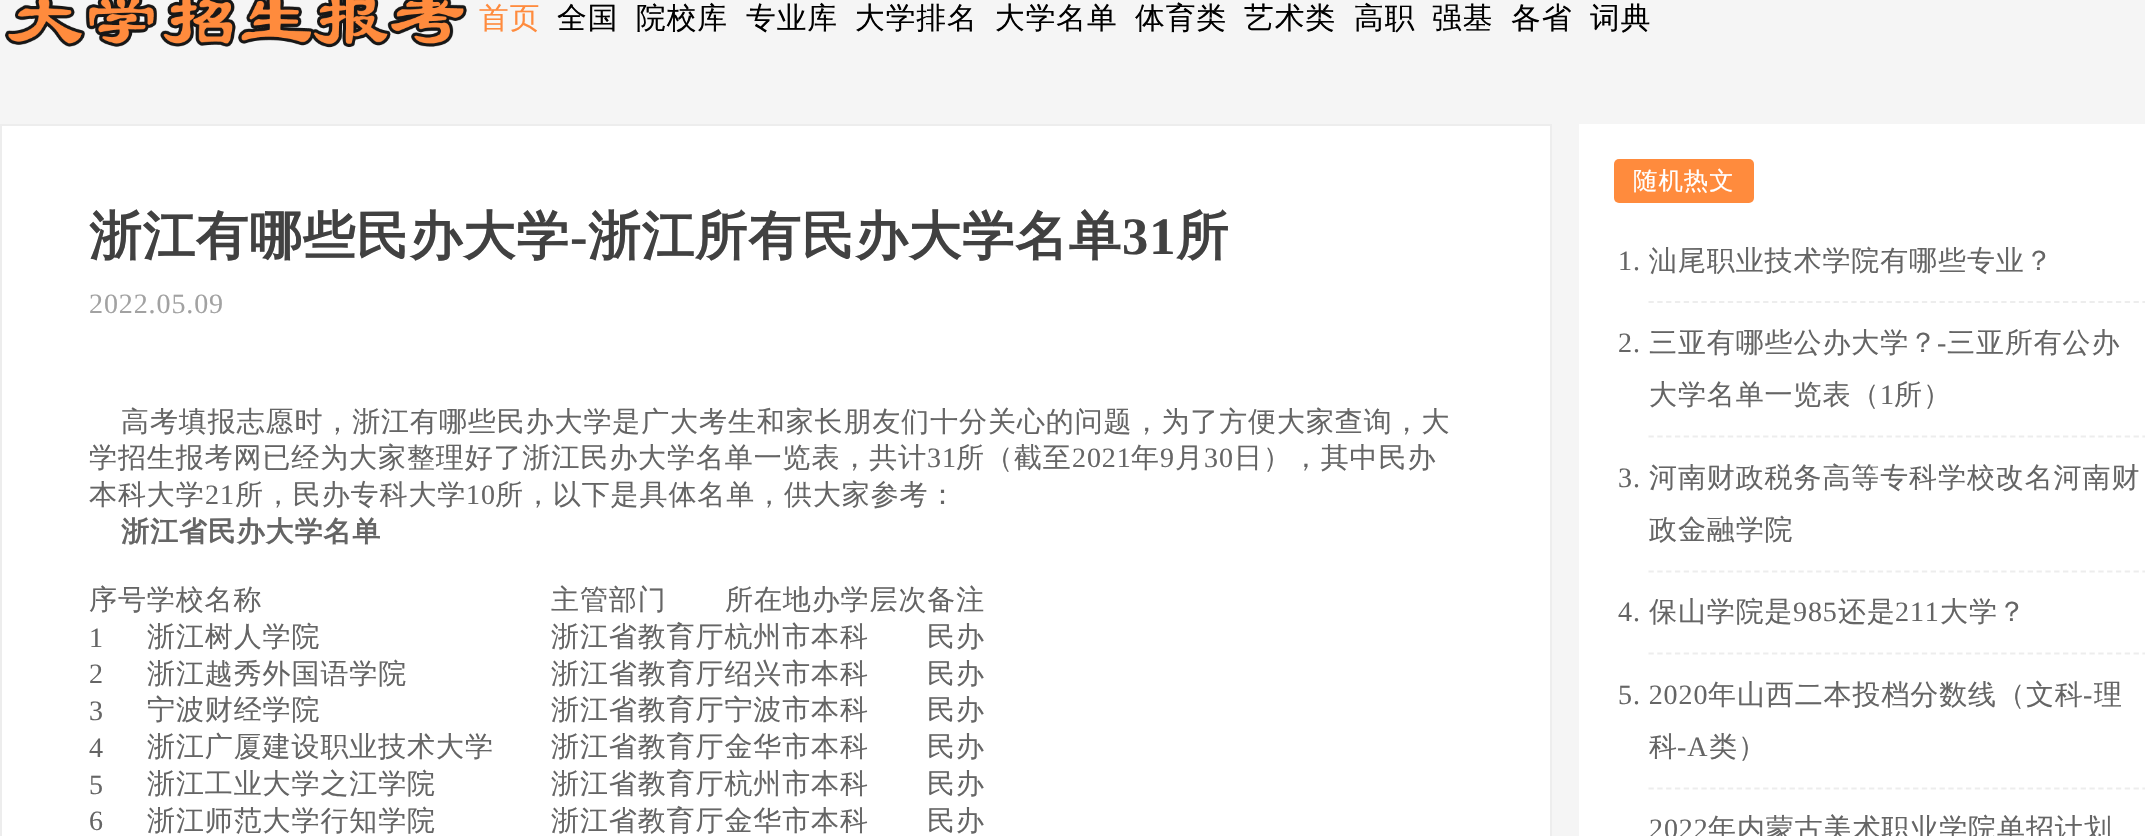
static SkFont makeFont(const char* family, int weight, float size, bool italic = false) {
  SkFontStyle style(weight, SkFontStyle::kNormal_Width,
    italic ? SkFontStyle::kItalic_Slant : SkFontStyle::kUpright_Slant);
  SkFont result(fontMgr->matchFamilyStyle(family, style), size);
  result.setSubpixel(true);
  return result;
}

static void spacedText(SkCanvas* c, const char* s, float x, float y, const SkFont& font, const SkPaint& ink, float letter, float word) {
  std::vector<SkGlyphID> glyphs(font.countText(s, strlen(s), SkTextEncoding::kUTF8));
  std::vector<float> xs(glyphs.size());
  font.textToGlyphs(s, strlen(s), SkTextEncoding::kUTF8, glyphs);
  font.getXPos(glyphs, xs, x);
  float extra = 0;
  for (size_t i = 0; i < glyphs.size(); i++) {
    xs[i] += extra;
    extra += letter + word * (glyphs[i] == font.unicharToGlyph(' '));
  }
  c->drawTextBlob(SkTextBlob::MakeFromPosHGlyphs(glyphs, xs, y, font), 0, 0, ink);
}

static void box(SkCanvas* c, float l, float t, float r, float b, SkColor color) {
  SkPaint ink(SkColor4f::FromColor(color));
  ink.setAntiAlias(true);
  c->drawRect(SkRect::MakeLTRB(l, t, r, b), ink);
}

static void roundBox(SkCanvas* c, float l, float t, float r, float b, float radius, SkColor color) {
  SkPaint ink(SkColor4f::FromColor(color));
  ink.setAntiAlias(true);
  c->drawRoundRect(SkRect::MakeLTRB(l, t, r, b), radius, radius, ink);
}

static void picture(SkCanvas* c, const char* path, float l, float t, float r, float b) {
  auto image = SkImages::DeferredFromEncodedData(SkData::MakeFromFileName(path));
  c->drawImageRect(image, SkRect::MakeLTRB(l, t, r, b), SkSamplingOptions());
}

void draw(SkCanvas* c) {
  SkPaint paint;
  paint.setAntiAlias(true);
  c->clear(0xfff5f5f5);
  picture(c, "img_01.png", 5, 0, 467, 48);
  SkFont face1 = makeFont("WenQuanYi Zen Hei", 500, 29.75f);
  paint.setColor(0xffff8b3d);
  spacedText(c, "首页", 479, 28, face1, paint, 0.9f, 0);
  paint.setColor(0xff000000);
  spacedText(c, "全国", 557, 28, face1, paint, 0.9f, 0);
  spacedText(c, "院校库", 636, 28, face1, paint, 0.9f, 0);
  spacedText(c, "专业库", 746, 28, face1, paint, 0.9f, 0);
  spacedText(c, "大学排名", 855, 28, face1, paint, 0.9f, 0);
  spacedText(c, "大学名单", 995, 28, face1, paint, 0.9f, 0);
  spacedText(c, "体育类", 1135, 28, face1, paint, 0.9f, 0);
  spacedText(c, "艺术类", 1244, 28, face1, paint, 0.9f, 0);
  spacedText(c, "高职", 1354, 28, face1, paint, 0.9f, 0);
  spacedText(c, "强基", 1432, 28, face1, paint, 0.9f, 0);
  spacedText(c, "各省", 1511, 28, face1, paint, 0.9f, 0);
  spacedText(c, "词典", 1590, 28, face1, paint, 0.9f, 0);
  paint.setColor(0xffffffff);
  c->drawRect(SkRect::MakeLTRB(1, 125, 1551, 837), paint);
  paint.setStyle(SkPaint::kStroke_Style);
  paint.setStrokeWidth(2);
  paint.setColor(0xffededed);
  c->drawRect(SkRect::MakeLTRB(1, 125, 1551, 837), paint);
  SkFont face2 = makeFont("WenQuanYi Zen Hei", 700, 52.5f);
  paint.setStyle(SkPaint::kFill_Style);
  paint.setColor(0xff414141);
  spacedText(c, "浙江有哪些民办大学", 89, 254, face2, paint, 0.9f, 0);
  SkFont face3 = makeFont("Liberation Serif", 700, 52.5f);
  spacedText(c, "-", 570, 254, face3, paint, 0.9f, 0);
  spacedText(c, "浙江所有民办大学名单", 588, 254, face2, paint, 0.9f, 0);
  spacedText(c, "31", 1122, 254, face3, paint, 0.9f, 0);
  spacedText(c, "所", 1176, 254, face2, paint, 0.9f, 0);
  SkFont face4 = makeFont("Liberation Serif", 400, 28);
  paint.setColor(0xffa2a2a2);
  spacedText(c, "2022.05.09", 89, 313, face4, paint, 0.9f, 0);
  SkFont face5 = makeFont("WenQuanYi Zen Hei", 500, 28);
  paint.setColor(0xff656565);
  spacedText(c, "高考填报志愿时，浙江有哪些民办大学是广大考生和家长朋友们十分关心的问题，为了方便大家查询，大", 121, 431, face5, paint, 0.9f, 0);
  spacedText(c, "学招生报考网已经为大家整理好了浙江民办大学名单一览表，共计", 89, 467, face5, paint, 0.9f, 0);
  spacedText(c, "31", 927, 467, face4, paint, 0.9f, 0);
  spacedText(c, "所（截至", 956, 467, face5, paint, 0.9f, 0);
  spacedText(c, "2021", 1072, 467, face4, paint, 0.9f, 0);
  spacedText(c, "年", 1131, 467, face5, paint, 0.9f, 0);
  spacedText(c, "9", 1160, 467, face4, paint, 0.9f, 0);
  spacedText(c, "月", 1175, 467, face5, paint, 0.9f, 0);
  spacedText(c, "30", 1204, 467, face4, paint, 0.9f, 0);
  spacedText(c, "日），其中民办", 1234, 467, face5, paint, 0.9f, 0);
  spacedText(c, "本科大学", 89, 504, face5, paint, 0.9f, 0);
  spacedText(c, "21", 205, 504, face4, paint, 0.9f, 0);
  spacedText(c, "所，民办专科大学", 235, 504, face5, paint, 0.9f, 0);
  spacedText(c, "10", 466, 504, face4, paint, 0.9f, 0);
  spacedText(c, "所，以下是具体名单，供大家参考：", 495, 504, face5, paint, 0.9f, 0);
  SkFont face6 = makeFont("WenQuanYi Zen Hei", 700, 28);
  spacedText(c, "浙江省民办大学名单", 121, 541, face6, paint, 0.9f, 0);
  spacedText(c, "序号学校名称", 89, 609, face5, paint, 0.9f, 0);
  spacedText(c, "主管部门", 551, 609, face5, paint, 0.9f, 0);
  spacedText(c, "所在地办学层次备注", 725, 609, face5, paint, 0.9f, 0);
  spacedText(c, "1", 89, 647, face4, paint, 0.9f, 0);
  spacedText(c, "浙江树人学院", 147, 646, face5, paint, 0.9f, 0);
  spacedText(c, "浙江省教育厅杭州市本科", 551, 646, face5, paint, 0.9f, 0);
  spacedText(c, "民办", 927, 646, face5, paint, 0.9f, 0);
  spacedText(c, "2", 89, 683, face4, paint, 0.9f, 0);
  spacedText(c, "浙江越秀外国语学院", 147, 683, face5, paint, 0.9f, 0);
  spacedText(c, "浙江省教育厅绍兴市本科", 551, 683, face5, paint, 0.9f, 0);
  spacedText(c, "民办", 927, 683, face5, paint, 0.9f, 0);
  spacedText(c, "3", 89, 720, face4, paint, 0.9f, 0);
  spacedText(c, "宁波财经学院", 147, 719, face5, paint, 0.9f, 0);
  spacedText(c, "浙江省教育厅宁波市本科", 551, 719, face5, paint, 0.9f, 0);
  spacedText(c, "民办", 927, 719, face5, paint, 0.9f, 0);
  spacedText(c, "4", 89, 757, face4, paint, 0.9f, 0);
  spacedText(c, "浙江广厦建设职业技术大学", 147, 756, face5, paint, 0.9f, 0);
  spacedText(c, "浙江省教育厅金华市本科", 551, 756, face5, paint, 0.9f, 0);
  spacedText(c, "民办", 927, 756, face5, paint, 0.9f, 0);
  spacedText(c, "5", 89, 794, face4, paint, 0.9f, 0);
  spacedText(c, "浙江工业大学之江学院", 147, 793, face5, paint, 0.9f, 0);
  spacedText(c, "浙江省教育厅杭州市本科", 551, 793, face5, paint, 0.9f, 0);
  spacedText(c, "民办", 927, 793, face5, paint, 0.9f, 0);
  spacedText(c, "6", 89, 830, face4, paint, 0.9f, 0);
  spacedText(c, "浙江师范大学行知学院", 147, 830, face5, paint, 0.9f, 0);
  spacedText(c, "浙江省教育厅金华市本科", 551, 830, face5, paint, 0.9f, 0);
  spacedText(c, "民办", 927, 830, face5, paint, 0.9f, 0);
  box(c, 1579, 124, 2145, 836, 0xffffffff);
  roundBox(c, 1614, 159, 1754, 203, 5, 0xffff8b3d);
  SkFont face7 = makeFont("WenQuanYi Zen Hei", 500, 24.5f);
  paint.setColor(0xffffffff);
  spacedText(c, "随机热文", 1633, 189, face7, paint, 0.9f, 0);
  paint.setStyle(SkPaint::kStroke_Style);
  paint.setStrokeWidth(1.8f);
  paint.setColor(0xffededed);
  paint.setPathEffect(SkDashPathEffect::Make({{5.25f, 3.57f}}, 0));
  c->drawPath(SkPathBuilder().moveTo(1648.5f, 302).lineTo(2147, 302).detach(), paint);
  paint.setPathEffect(nullptr);
  paint.setStyle(SkPaint::kFill_Style);
  paint.setColor(0xff656565);
  spacedText(c, "1.", 1618, 270, face4, paint, 0.9f, 0);
  spacedText(c, "汕尾职业技术学院有哪些专业？", 1649, 270, face5, paint, 0.9f, 0);
  paint.setStyle(SkPaint::kStroke_Style);
  paint.setColor(0xffededed);
  paint.setPathEffect(SkDashPathEffect::Make({{5.25f, 3.57f}}, 0));
  c->drawPath(SkPathBuilder().moveTo(1648.5f, 436.5f).lineTo(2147, 436.5f).detach(), paint);
  paint.setPathEffect(nullptr);
  paint.setStyle(SkPaint::kFill_Style);
  paint.setColor(0xff656565);
  spacedText(c, "2.", 1618, 352, face4, paint, 0.9f, 0);
  spacedText(c, "三亚有哪些公办大学？", 1649, 352, face5, paint, 0.9f, 0);
  spacedText(c, "-", 1937, 352, face4, paint, 0.9f, 0);
  spacedText(c, "三亚所有公办", 1947, 352, face5, paint, 0.9f, 0);
  spacedText(c, "大学名单一览表（", 1649, 404, face5, paint, 0.9f, 0);
  spacedText(c, "1", 1880, 404, face4, paint, 0.9f, 0);
  spacedText(c, "所）", 1894, 404, face5, paint, 0.9f, 0);
  paint.setStyle(SkPaint::kStroke_Style);
  paint.setColor(0xffededed);
  paint.setPathEffect(SkDashPathEffect::Make({{5.25f, 3.57f}}, 0));
  c->drawPath(SkPathBuilder().moveTo(1648.5f, 571.5f).lineTo(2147, 571.5f).detach(), paint);
  paint.setPathEffect(nullptr);
  paint.setStyle(SkPaint::kFill_Style);
  paint.setColor(0xff656565);
  spacedText(c, "3.", 1618, 487, face4, paint, 0.9f, 0);
  spacedText(c, "河南财政税务高等专科学校改名河南财", 1649, 487, face5, paint, 0.9f, 0);
  spacedText(c, "政金融学院", 1649, 539, face5, paint, 0.9f, 0);
  paint.setStyle(SkPaint::kStroke_Style);
  paint.setColor(0xffededed);
  paint.setPathEffect(SkDashPathEffect::Make({{5.25f, 3.57f}}, 0));
  c->drawPath(SkPathBuilder().moveTo(1648.5f, 653.5f).lineTo(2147, 653.5f).detach(), paint);
  paint.setPathEffect(nullptr);
  paint.setStyle(SkPaint::kFill_Style);
  paint.setColor(0xff656565);
  spacedText(c, "4.", 1618, 621, face4, paint, 0.9f, 0);
  spacedText(c, "保山学院是", 1649, 621, face5, paint, 0.9f, 0);
  spacedText(c, "985", 1793, 621, face4, paint, 0.9f, 0);
  spacedText(c, "还是", 1838, 621, face5, paint, 0.9f, 0);
  spacedText(c, "211", 1895, 621, face4, paint, 0.9f, 0);
  spacedText(c, "大学？", 1940, 621, face5, paint, 0.9f, 0);
  paint.setStyle(SkPaint::kStroke_Style);
  paint.setColor(0xffededed);
  paint.setPathEffect(SkDashPathEffect::Make({{5.25f, 3.57f}}, 0));
  c->drawPath(SkPathBuilder().moveTo(1648.5f, 788.5f).lineTo(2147, 788.5f).detach(), paint);
  paint.setPathEffect(nullptr);
  paint.setStyle(SkPaint::kFill_Style);
  paint.setColor(0xff656565);
  spacedText(c, "年山西二本投档分数线（文科", 1708, 704, face5, paint, 0.9f, 0);
  spacedText(c, "-", 2083, 704, face4, paint, 0.9f, 0);
  spacedText(c, "理", 2094, 704, face5, paint, 0.9f, 0);
  spacedText(c, "科", 1649, 756, face5, paint, 0.9f, 0);
  spacedText(c, "-A", 1677, 756, face4, paint, 0.9f, 0);
  spacedText(c, "类）", 1709, 756, face5, paint, 0.9f, 0);
  spacedText(c, "5. 2020", 1618, 704, face4, paint, 0.9f, 0);
  spacedText(c, "2022", 1649, 838, face4, paint, 0.9f, 0);
  spacedText(c, "年内蒙古美术职业学院单招计划", 1708, 838, face5, paint, 0.9f, 0);
}
